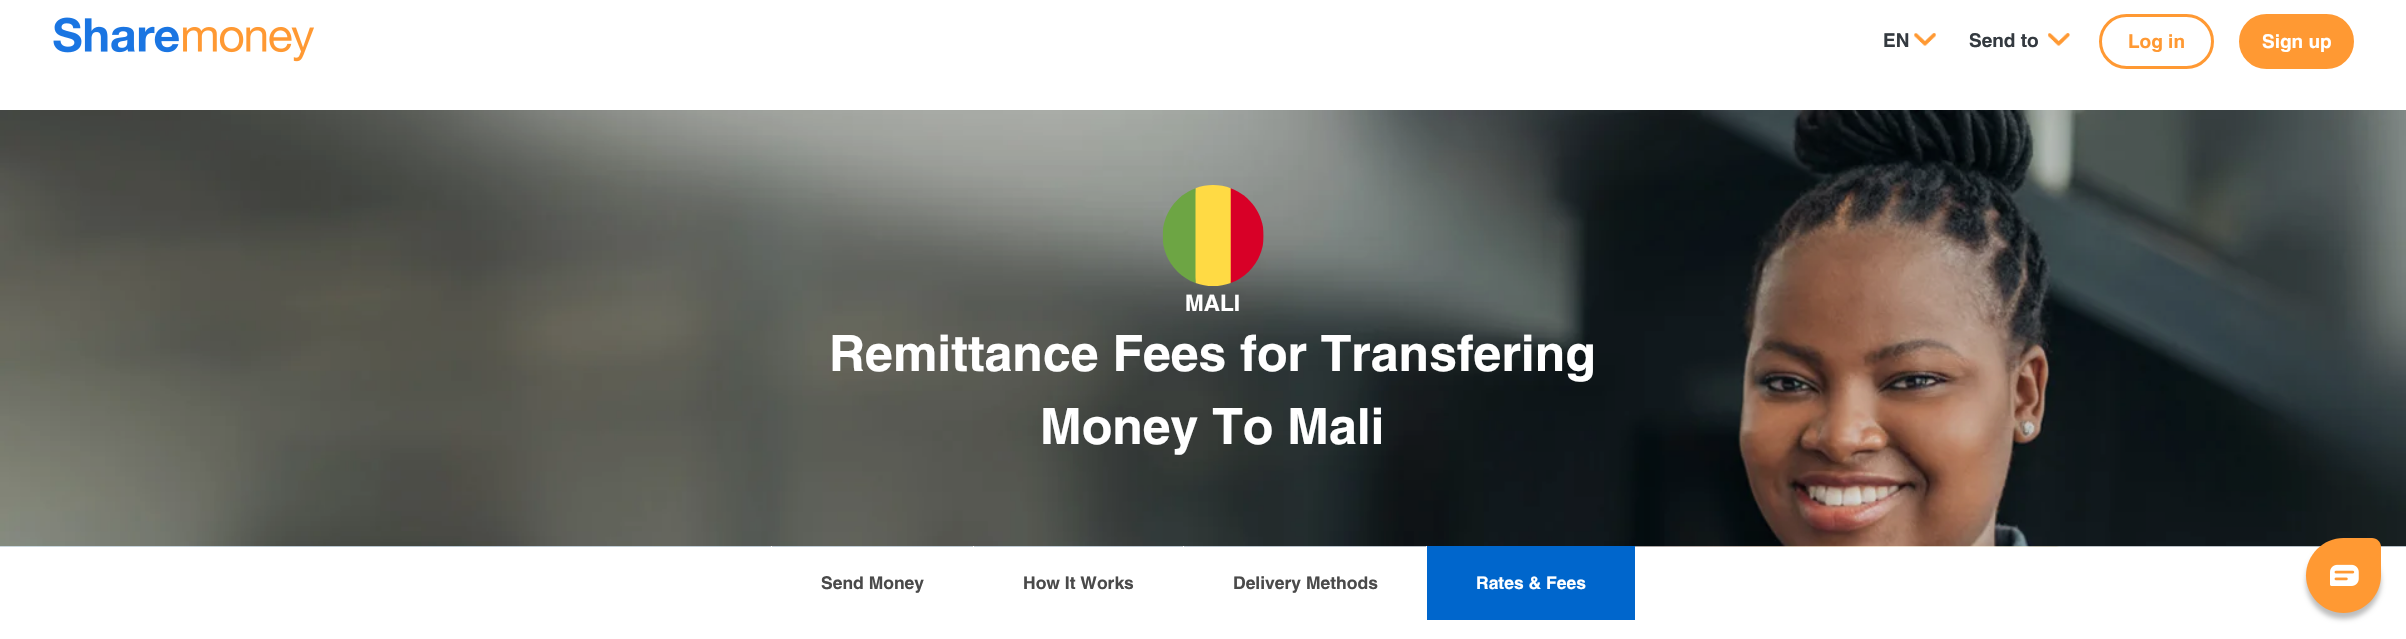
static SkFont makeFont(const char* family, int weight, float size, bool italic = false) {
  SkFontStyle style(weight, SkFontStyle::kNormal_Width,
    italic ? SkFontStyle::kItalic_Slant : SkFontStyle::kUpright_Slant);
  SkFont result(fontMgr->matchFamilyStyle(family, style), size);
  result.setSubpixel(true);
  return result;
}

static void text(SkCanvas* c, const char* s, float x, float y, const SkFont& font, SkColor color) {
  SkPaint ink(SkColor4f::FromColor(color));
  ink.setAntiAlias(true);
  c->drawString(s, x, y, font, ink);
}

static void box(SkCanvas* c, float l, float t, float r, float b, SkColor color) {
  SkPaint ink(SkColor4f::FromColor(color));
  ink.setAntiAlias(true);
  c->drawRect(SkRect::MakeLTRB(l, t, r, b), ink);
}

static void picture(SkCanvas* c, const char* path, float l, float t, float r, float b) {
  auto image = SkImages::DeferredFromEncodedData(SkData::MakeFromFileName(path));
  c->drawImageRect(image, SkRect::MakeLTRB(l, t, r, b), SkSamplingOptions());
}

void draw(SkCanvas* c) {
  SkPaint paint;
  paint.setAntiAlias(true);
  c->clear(0xffffffff);
  picture(c, "img_01.png", 53, 17, 314, 62);
  SkFont face1 = makeFont("Helvetica", 700, 19);
  text(c, "EN", 1883, 47, face1, 0xff343a40);
  picture(c, "img_02.png", 1914, 33, 1936, 46);
  text(c, "Send to", 1969, 47, face1, 0xff343a40);
  picture(c, "img_03.png", 2048, 33, 2070, 46);
  paint.setStyle(SkPaint::kStroke_Style);
  paint.setStrokeWidth(3);
  paint.setColor(0xffff9933);
  c->drawRoundRect(SkRect::MakeLTRB(2100.5f, 15.5f, 2212.5f, 67.5f), 26, 26, paint);
  text(c, "Log in", 2128, 48, face1, 0xffff9933);
  paint.setStyle(SkPaint::kFill_Style);
  c->drawRoundRect(SkRect::MakeLTRB(2240.5f, 15.5f, 2352.5f, 67.5f), 26, 26, paint);
  paint.setStyle(SkPaint::kStroke_Style);
  c->drawRoundRect(SkRect::MakeLTRB(2240.5f, 15.5f, 2352.5f, 67.5f), 26, 26, paint);
  text(c, "Sign up", 2262, 48, face1, 0xffffffff);
  picture(c, "img_04.png", 0, 110, 2406, 547);
  picture(c, "img_05.png", 1162, 185, 1264, 286);
  SkFont face2 = makeFont("Helvetica", 700, 22.5f);
  text(c, "MALI", 1185, 311, face2, 0xffffffff);
  SkFont face3 = makeFont("Helvetica", 700, 50);
  text(c, "Remittance Fees for Transfering", 829, 371, face3, 0xffffffff);
  text(c, "Money To Mali", 1040, 444, face3, 0xffffffff);
  box(c, 771, 546, 772, 547, 0xffffffff);
  SkFont face4 = makeFont("Helvetica", 700, 17.5f);
  text(c, "Send Money", 821, 589, face4, 0xff4a4a4a);
  box(c, 973, 546, 974, 547, 0xffffffff);
  text(c, "How It Works", 1023, 589, face4, 0xff4a4a4a);
  box(c, 1183, 546, 1184, 547, 0xffffffff);
  text(c, "Delivery Methods", 1233, 589, face4, 0xff4a4a4a);
  box(c, 1427, 546, 1635, 620, 0xff0066cc);
  box(c, 1426, 546, 1427, 547, 0xffffffff);
  text(c, "Rates & Fees", 1476, 589, face4, 0xffffffff);
  paint.setStyle(SkPaint::kFill_Style);
  paint.setColor(0x42000000);
  paint.setMaskFilter(SkMaskFilter::MakeBlur(kNormal_SkBlurStyle, 2.5f));
  c->drawRoundRect(SkRect::MakeLTRB(2306, 544, 2381, 619), 37.5f, 37.5f, paint);
  paint.setMaskFilter(nullptr);
  paint.setColor(0xffff9933);
  c->drawPath(SkPathBuilder().moveTo(2343.5f, 538).lineTo(2372, 538).cubicTo(2377, 538, 2381, 542, 2381, 547).lineTo(2381, 575.5f).cubicTo(2381, 596, 2364, 613, 2343.5f, 613).cubicTo(2323, 613, 2306, 596, 2306, 575.5f).cubicTo(2306, 555, 2323, 538, 2343.5f, 538).close().detach(), paint);
  picture(c, "img_06.png", 2330, 564, 2359, 586);
}
